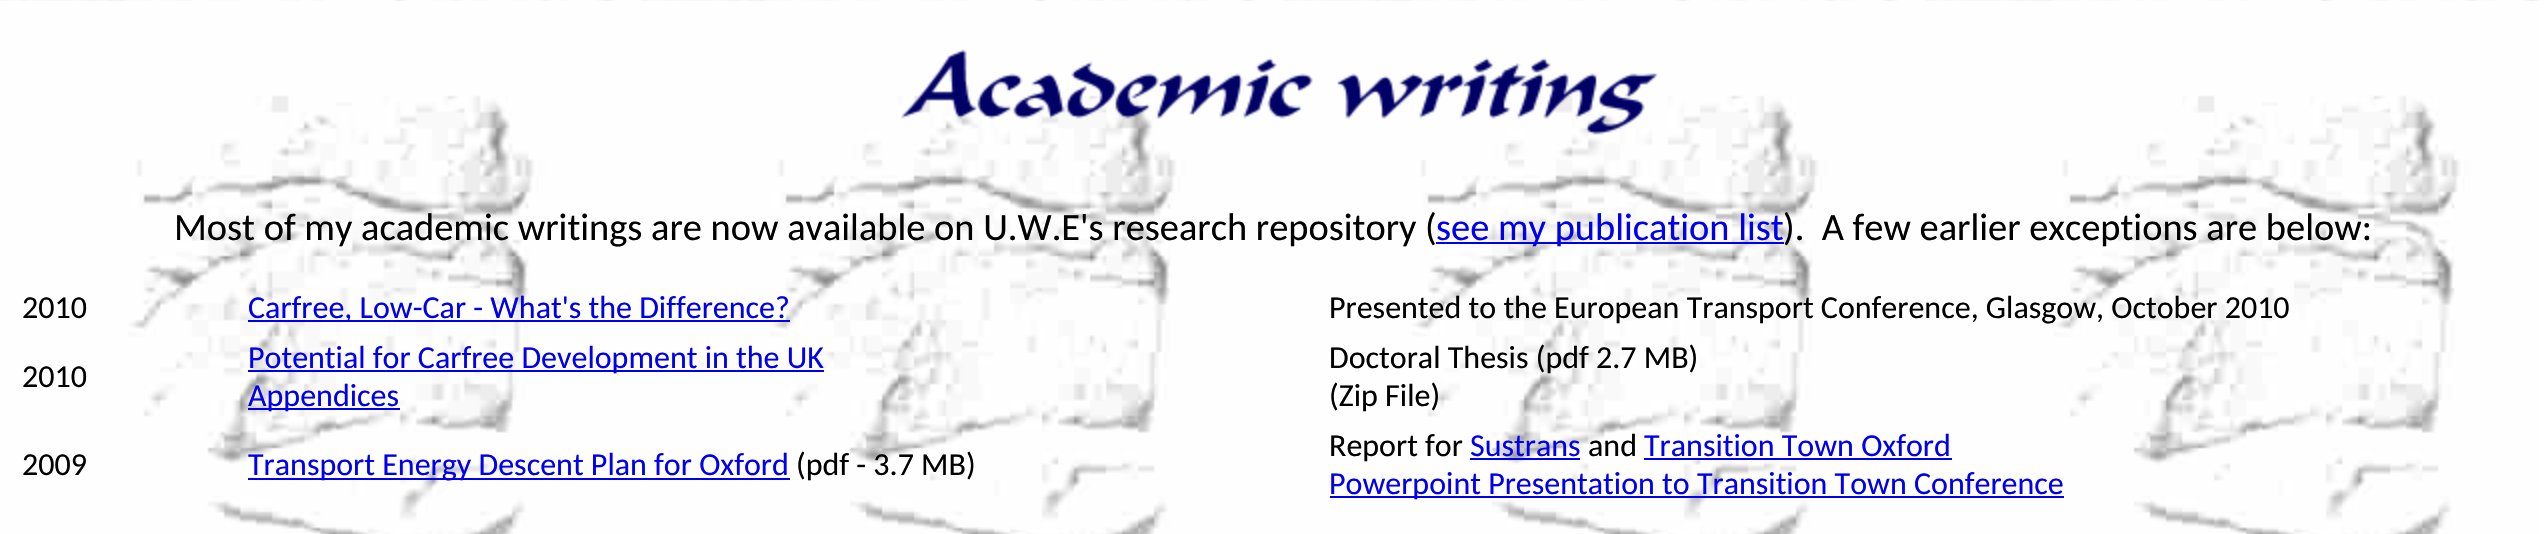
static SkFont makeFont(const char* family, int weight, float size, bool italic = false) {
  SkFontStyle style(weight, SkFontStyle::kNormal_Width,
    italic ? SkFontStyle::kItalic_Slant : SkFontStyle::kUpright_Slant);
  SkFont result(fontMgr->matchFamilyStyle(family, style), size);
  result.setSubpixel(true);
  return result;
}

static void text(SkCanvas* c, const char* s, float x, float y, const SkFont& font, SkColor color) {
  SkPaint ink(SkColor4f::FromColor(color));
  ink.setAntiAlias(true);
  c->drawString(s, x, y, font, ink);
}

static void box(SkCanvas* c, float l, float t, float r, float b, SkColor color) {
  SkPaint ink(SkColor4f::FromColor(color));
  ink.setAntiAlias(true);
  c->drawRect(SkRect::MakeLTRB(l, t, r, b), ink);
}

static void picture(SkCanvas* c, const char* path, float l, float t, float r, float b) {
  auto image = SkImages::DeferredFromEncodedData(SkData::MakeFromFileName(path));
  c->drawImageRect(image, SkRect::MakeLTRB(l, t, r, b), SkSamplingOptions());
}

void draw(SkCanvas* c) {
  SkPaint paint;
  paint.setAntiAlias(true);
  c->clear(0xffffffff);
  picture(c, "img_01.png", 0, 0, 2539, 534);
  picture(c, "img_02.png", 901, 49, 1658, 135);
  SkFont face1 = makeFont("Carlito", 400, 38.4f);
  text(c, "Most of my academic writings are now available on U.W.E's research repository (", 174, 240, face1, 0xff000000);
  box(c, 1436, 242, 1784, 244, 0xff0000ee);
  text(c, "see my publication list", 1436, 240, face1, 0xff0000ee);
  text(c, ").  A few earlier exceptions are below:", 1783, 240, face1, 0xff000000);
  SkFont face2 = makeFont("Carlito", 400, 32);
  text(c, "2010", 22, 318, face2, 0xff000000);
  box(c, 248, 320, 790, 322, 0xff0000ee);
  text(c, "Carfree, Low-Car - What's the Difference?", 248, 318, face2, 0xff0000ee);
  text(c, "Presented to the European Transport Conference, Glasgow, October 2010", 1329, 318, face2, 0xff000000);
  text(c, "2010", 22, 387, face2, 0xff000000);
  box(c, 248, 370, 824, 372, 0xff0000ee);
  text(c, "Potential for Carfree Development in the UK", 248, 368, face2, 0xff0000ee);
  box(c, 248, 408, 400, 410, 0xff0000ee);
  text(c, "Appendices", 248, 406, face2, 0xff0000ee);
  text(c, "Doctoral Thesis (pdf 2.7 MB)", 1329, 368, face2, 0xff000000);
  text(c, "(Zip File)", 1329, 406, face2, 0xff000000);
  text(c, "2009", 22, 475, face2, 0xff000000);
  box(c, 248, 478, 790, 480, 0xff0000ee);
  text(c, "Transport Energy Descent Plan for Oxford", 248, 475, face2, 0xff0000ee);
  text(c, "(pdf - 3.7 MB)", 796, 475, face2, 0xff000000);
  text(c, "Report for", 1329, 456, face2, 0xff000000);
  text(c, "Sustrans", 1470, 456, face2, 0xff0000ee);
  box(c, 1470, 458, 1580, 460, 0xff0000ee);
  text(c, "and", 1588, 456, face2, 0xff000000);
  text(c, "Transition Town Oxford", 1644, 456, face2, 0xff0000ee);
  box(c, 1644, 458, 1952, 460, 0xff0000ee);
  box(c, 1330, 496, 2064, 498, 0xff0000ee);
  text(c, "Powerpoint Presentation to Transition Town Conference", 1329, 494, face2, 0xff0000ee);
}
